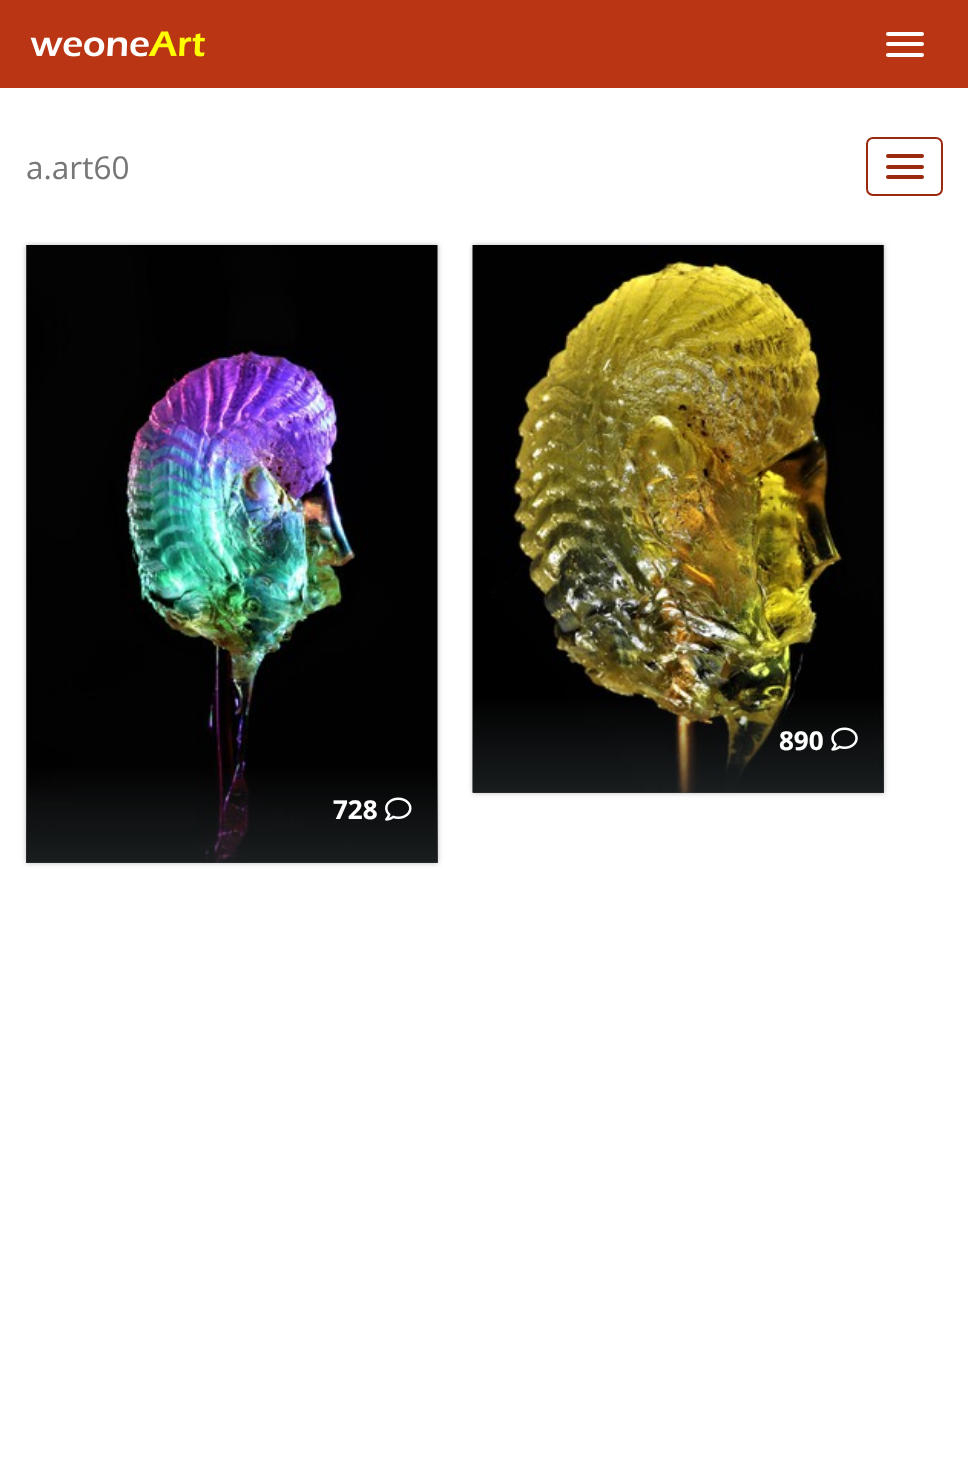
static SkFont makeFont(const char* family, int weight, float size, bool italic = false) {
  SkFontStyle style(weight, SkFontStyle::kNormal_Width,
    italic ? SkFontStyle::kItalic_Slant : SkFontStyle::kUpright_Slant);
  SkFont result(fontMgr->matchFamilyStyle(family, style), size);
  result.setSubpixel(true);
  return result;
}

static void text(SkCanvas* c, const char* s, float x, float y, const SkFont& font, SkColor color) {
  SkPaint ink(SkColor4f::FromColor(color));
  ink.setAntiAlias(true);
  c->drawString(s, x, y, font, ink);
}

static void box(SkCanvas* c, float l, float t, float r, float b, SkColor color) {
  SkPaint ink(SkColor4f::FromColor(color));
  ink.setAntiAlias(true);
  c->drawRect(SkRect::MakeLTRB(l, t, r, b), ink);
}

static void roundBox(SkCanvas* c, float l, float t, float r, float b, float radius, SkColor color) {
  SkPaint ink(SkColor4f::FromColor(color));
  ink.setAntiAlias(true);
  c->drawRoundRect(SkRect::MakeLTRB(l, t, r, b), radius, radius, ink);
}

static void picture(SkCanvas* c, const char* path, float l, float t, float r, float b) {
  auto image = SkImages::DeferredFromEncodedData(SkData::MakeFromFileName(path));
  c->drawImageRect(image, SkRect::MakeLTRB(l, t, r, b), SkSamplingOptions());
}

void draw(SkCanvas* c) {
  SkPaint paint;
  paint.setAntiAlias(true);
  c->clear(0xffffffff);
  box(c, 0, 0, 968, 88, 0xffb93513);
  picture(c, "img_01.png", 30, 31, 205, 57);
  roundBox(c, 886, 32, 924, 36, 2, 0xffffffff);
  roundBox(c, 886, 42, 924, 46, 2, 0xffffffff);
  roundBox(c, 886, 53, 924, 57, 2, 0xffffffff);
  SkFont face1 = makeFont("Open Sans", 400, 31.5f);
  text(c, "a.art60", 26, 179, face1, 0xff777777);
  paint.setStyle(SkPaint::kStroke_Style);
  paint.setStrokeWidth(2);
  paint.setColor(0xff9a290e);
  c->drawRoundRect(SkRect::MakeLTRB(867, 138, 942, 195), 6, 6, paint);
  roundBox(c, 886, 154, 924, 158, 2, 0xff9a290e);
  roundBox(c, 886, 165, 924, 169, 2, 0xff9a290e);
  roundBox(c, 886, 175, 924, 179, 2, 0xff9a290e);
  paint.setStyle(SkPaint::kFill_Style);
  paint.setColor(0xffbbbbbb);
  paint.setMaskFilter(SkMaskFilter::MakeBlur(kNormal_SkBlurStyle, 2.5f));
  c->drawRect(SkRect::MakeLTRB(473, 245, 884, 793), paint);
  paint.setMaskFilter(nullptr);
  picture(c, "img_02.png", 472, 245, 884, 793);
  {
    const SkColor colors[] = {0x00202527, 0xc9202527};
    const float stops[] = {0, 1};
    const SkPoint ends[] = {{678, 695}, {678, 793}};
    paint.setShader(SkGradientShader::MakeLinear(ends, colors, stops, 2, SkTileMode::kClamp));
    paint.setAlpha(255);
  }
  c->drawRect(SkRect::MakeLTRB(473, 698, 884, 793), paint);
  SkFont face2 = makeFont("Open Sans", 700, 26);
  text(c, "890", 779, 750, face2, 0xffffffff);
  picture(c, "img_03.png", 831, 727, 858, 751);
  paint.setShader(nullptr);
  paint.setColor(0xffbbbbbb);
  paint.setMaskFilter(SkMaskFilter::MakeBlur(kNormal_SkBlurStyle, 2.5f));
  c->drawRect(SkRect::MakeLTRB(26, 245, 438, 863), paint);
  paint.setMaskFilter(nullptr);
  picture(c, "img_04.png", 26, 245, 438, 863);
  {
    const SkColor colors[] = {0x00202527, 0xc9202527};
    const float stops[] = {0, 1};
    const SkPoint ends[] = {{232, 765}, {232, 863}};
    paint.setShader(SkGradientShader::MakeLinear(ends, colors, stops, 2, SkTileMode::kClamp));
    paint.setAlpha(255);
  }
  c->drawRect(SkRect::MakeLTRB(26, 768, 438, 863), paint);
  text(c, "728", 333, 819, face2, 0xffffffff);
  picture(c, "img_05.png", 385, 797, 412, 821);
}
